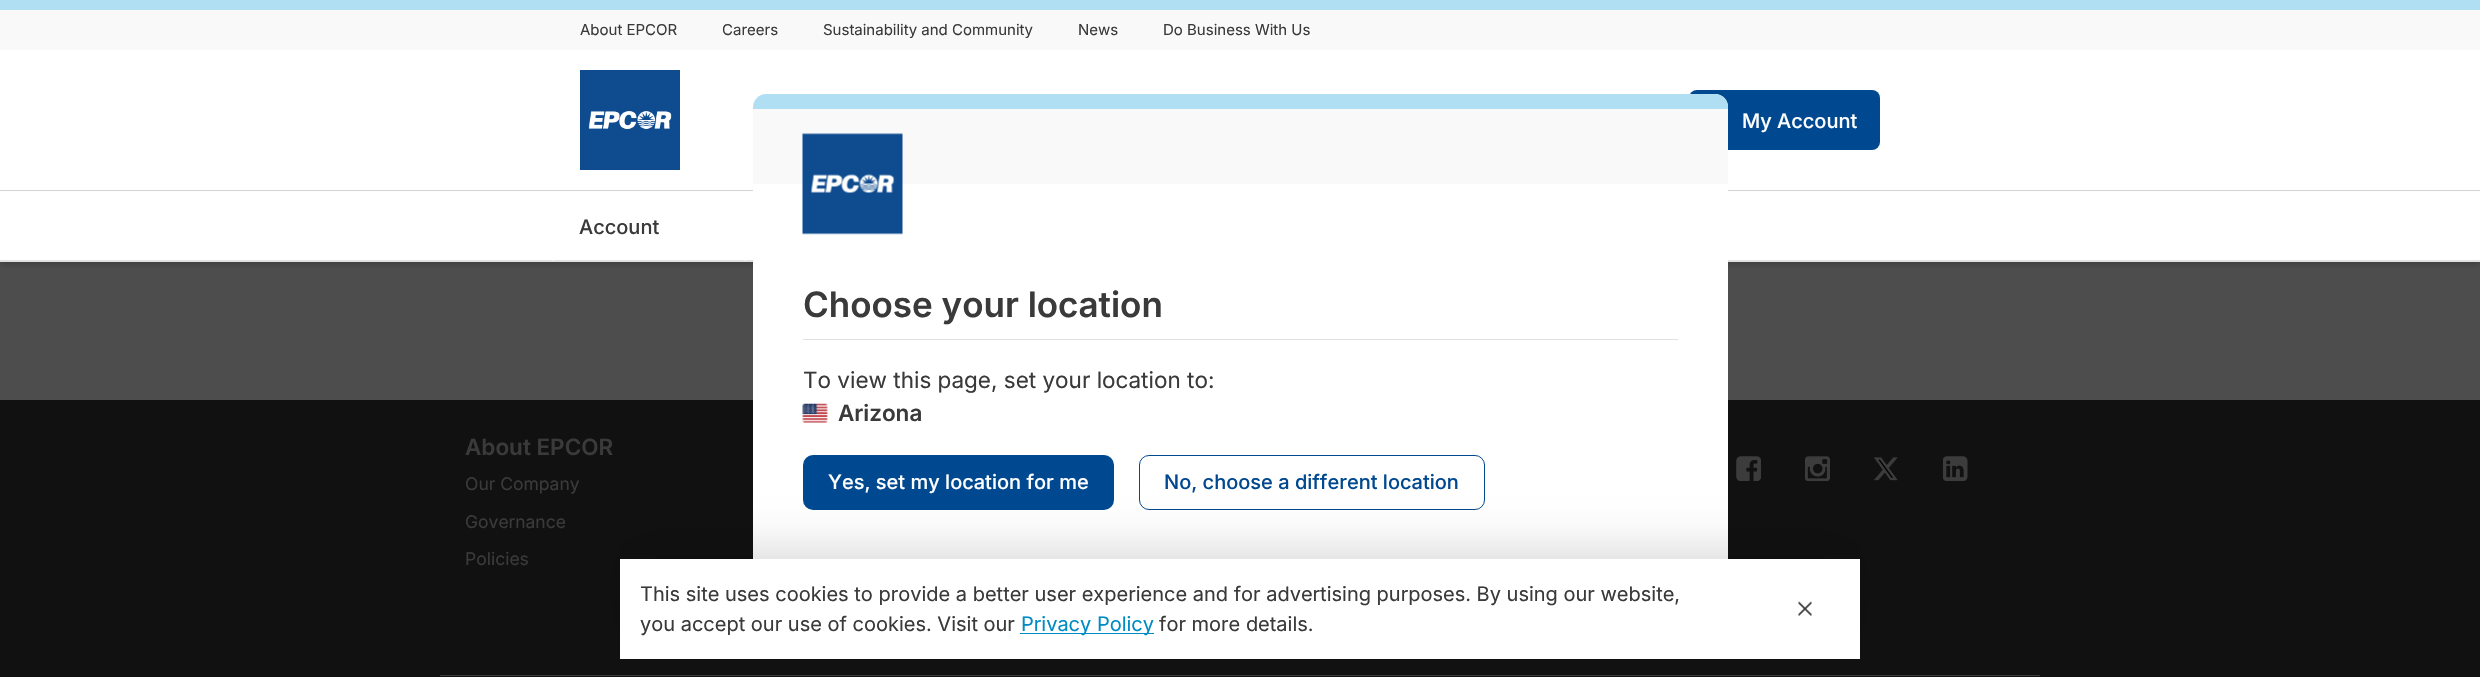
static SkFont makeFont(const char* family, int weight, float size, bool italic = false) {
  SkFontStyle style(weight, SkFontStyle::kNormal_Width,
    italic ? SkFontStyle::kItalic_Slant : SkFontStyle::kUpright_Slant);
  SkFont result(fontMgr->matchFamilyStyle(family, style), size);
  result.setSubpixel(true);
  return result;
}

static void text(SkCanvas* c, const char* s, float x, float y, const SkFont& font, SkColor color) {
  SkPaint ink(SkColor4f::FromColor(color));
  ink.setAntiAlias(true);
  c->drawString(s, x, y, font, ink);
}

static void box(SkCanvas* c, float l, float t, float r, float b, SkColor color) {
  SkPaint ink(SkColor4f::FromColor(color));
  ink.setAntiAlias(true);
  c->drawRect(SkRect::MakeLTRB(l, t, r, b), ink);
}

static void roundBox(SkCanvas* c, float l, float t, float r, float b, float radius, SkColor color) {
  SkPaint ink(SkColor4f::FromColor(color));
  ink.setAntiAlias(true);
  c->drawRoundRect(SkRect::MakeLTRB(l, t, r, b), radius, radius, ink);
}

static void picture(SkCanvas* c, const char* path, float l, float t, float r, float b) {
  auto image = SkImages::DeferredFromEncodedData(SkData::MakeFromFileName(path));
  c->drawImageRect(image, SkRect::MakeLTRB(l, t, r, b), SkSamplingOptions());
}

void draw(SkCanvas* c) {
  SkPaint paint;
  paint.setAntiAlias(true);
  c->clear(0xff4d4d4d);
  box(c, 0, 400, 2480, 677, 0xff111111);
  SkFont face1 = makeFont("Inter", 600, 22.5f);
  text(c, "About EPCOR", 465, 455, face1, 0xff3a3a3a);
  SkFont face2 = makeFont("Inter", 400, 17.5f);
  text(c, "Our Company", 465, 490, face2, 0xff3a3a3a);
  text(c, "Governance", 465, 528, face2, 0xff3a3a3a);
  text(c, "Policies", 465, 565, face2, 0xff3a3a3a);
  picture(c, "img_01.png", 1736, 456, 1761, 481);
  picture(c, "img_02.png", 1805, 456, 1830, 481);
  picture(c, "img_03.png", 1874, 457, 1898, 481);
  picture(c, "img_04.png", 1943, 456, 1968, 481);
  box(c, 440, 675, 2040, 676, 0xff3a3a3a);
  paint.setColor(0x29000000);
  paint.setMaskFilter(SkMaskFilter::MakeBlur(kNormal_SkBlurStyle, 2.5f));
  c->drawRect(SkRect::MakeLTRB(0, 3, 2480, 265), paint);
  paint.setMaskFilter(nullptr);
  box(c, 0, 261, 2480, 262, 0xffe0e0e0);
  box(c, 0, 0, 2480, 10, 0xffb0dff3);
  box(c, 0, 10, 2480, 50, 0xfff9f9f9);
  SkFont face3 = makeFont("Inter", 400, 15);
  text(c, "About EPCOR", 580, 35, face3, 0xff3a3a3a);
  text(c, "Careers", 722, 35, face3, 0xff3a3a3a);
  text(c, "Sustainability and Community", 823, 35, face3, 0xff3a3a3a);
  text(c, "News", 1078, 35, face3, 0xff3a3a3a);
  text(c, "Do Business With Us", 1163, 35, face3, 0xff3a3a3a);
  box(c, 0, 191, 2480, 260, 0xffffffff);
  box(c, 0, 190, 2480, 191, 0xffd3d3d3);
  box(c, 0, 260, 715, 261, 0xffe0e0e0);
  box(c, 553, 260, 554, 261, 0xffffffff);
  SkFont face4 = makeFont("Inter", 500, 20);
  text(c, "Account", 579, 234, face4, 0xff3a3a3a);
  box(c, 715, 260, 753, 261, 0xffe0e0e0);
  box(c, 745, 260, 746, 261, 0xffffffff);
  box(c, 1728, 260, 2480, 261, 0xffe0e0e0);
  box(c, 0, 50, 2480, 190, 0xffffffff);
  picture(c, "img_05.png", 580, 70, 680, 170);
  roundBox(c, 1689, 90, 1880, 150, 8, 0xff004890);
  text(c, "My Account", 1742, 128, face4, 0xffffffff);
  roundBox(c, 753, 94, 1728, 585, 13, 0xffffffff);
  paint.setColor(0xffb0dff3);
  c->drawPath(SkPathBuilder().moveTo(766, 94).lineTo(1715, 94).cubicTo(1722, 94, 1728, 100, 1728, 107).lineTo(1728, 109).lineTo(753, 109).lineTo(753, 107).cubicTo(753, 100, 759, 94, 766, 94).close().detach(), paint);
  box(c, 753, 109, 1728, 184, 0xfff9f9f9);
  picture(c, "img_06.png", 802, 133, 903, 235);
  box(c, 803, 339, 1678, 340, 0xffe0e0e0);
  SkFont face5 = makeFont("Inter", 600, 35);
  text(c, "Choose your location", 803, 317, face5, 0xff3a3a3a);
  SkFont face6 = makeFont("Inter", 400, 22.5f);
  text(c, "To view this page, set your location to:", 803, 388, face6, 0xff3a3a3a);
  picture(c, "img_07.png", 802, 403, 828, 423);
  text(c, "Arizona", 838, 421, face1, 0xff3a3a3a);
  roundBox(c, 803, 455, 1114, 510, 10, 0xff004890);
  text(c, "Yes, set my location for me", 828, 489, face4, 0xffffffff);
  paint.setStyle(SkPaint::kStroke_Style);
  paint.setStrokeWidth(1);
  paint.setColor(0xff004890);
  c->drawRoundRect(SkRect::MakeLTRB(1139.5f, 455.5f, 1484.5f, 509.5f), 9.5f, 9.5f, paint);
  text(c, "No, choose a different location", 1164, 489, face4, 0xff004890);
  paint.setStyle(SkPaint::kFill_Style);
  paint.setColor(0x1f000000);
  paint.setMaskFilter(SkMaskFilter::MakeBlur(kNormal_SkBlurStyle, 20));
  c->drawRect(SkRect::MakeLTRB(625, 544, 1855, 634), paint);
  paint.setMaskFilter(nullptr);
  box(c, 620, 559, 1860, 659, 0xffffffff);
  SkFont face7 = makeFont("Inter", 400, 20);
  text(c, "This site uses cookies to provide a better user experience and for advertising purposes. By using our website,", 640, 601, face7, 0xff3a3a3a);
  text(c, "you accept our use of cookies. Visit our", 640, 631, face7, 0xff3a3a3a);
  box(c, 1020, 633, 1154, 634, 0xff008bc4);
  text(c, "Privacy Policy", 1021, 631, face7, 0xff008bc4);
  text(c, "for more details.", 1159, 631, face7, 0xff3a3a3a);
  picture(c, "img_08.png", 1798, 601, 1812, 616);
}
